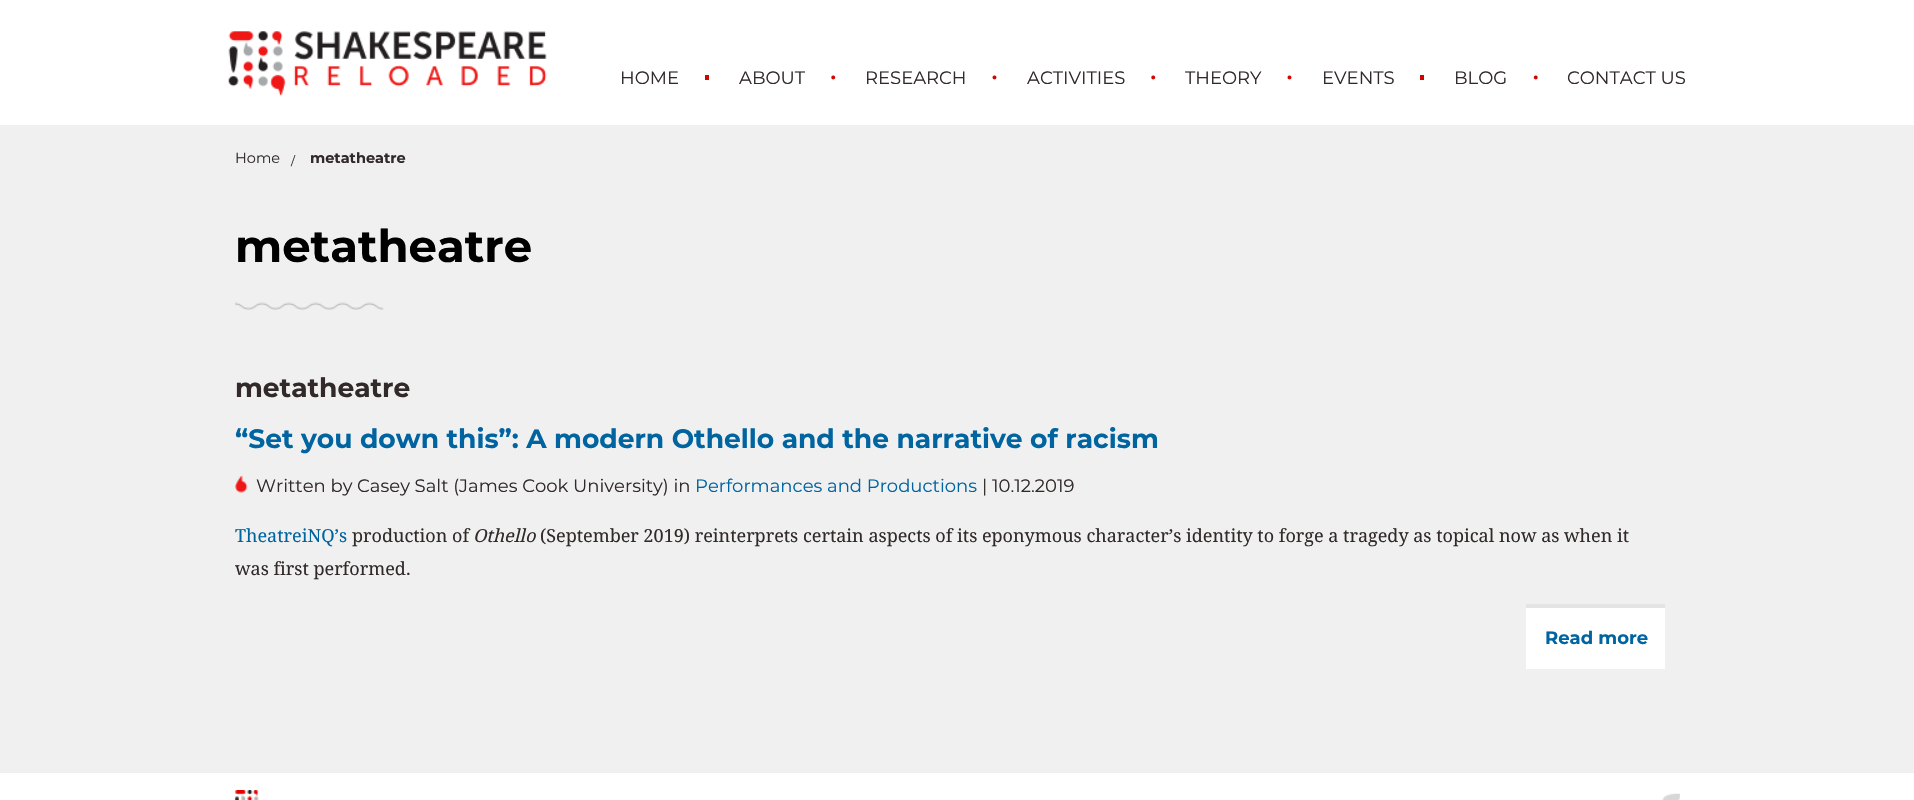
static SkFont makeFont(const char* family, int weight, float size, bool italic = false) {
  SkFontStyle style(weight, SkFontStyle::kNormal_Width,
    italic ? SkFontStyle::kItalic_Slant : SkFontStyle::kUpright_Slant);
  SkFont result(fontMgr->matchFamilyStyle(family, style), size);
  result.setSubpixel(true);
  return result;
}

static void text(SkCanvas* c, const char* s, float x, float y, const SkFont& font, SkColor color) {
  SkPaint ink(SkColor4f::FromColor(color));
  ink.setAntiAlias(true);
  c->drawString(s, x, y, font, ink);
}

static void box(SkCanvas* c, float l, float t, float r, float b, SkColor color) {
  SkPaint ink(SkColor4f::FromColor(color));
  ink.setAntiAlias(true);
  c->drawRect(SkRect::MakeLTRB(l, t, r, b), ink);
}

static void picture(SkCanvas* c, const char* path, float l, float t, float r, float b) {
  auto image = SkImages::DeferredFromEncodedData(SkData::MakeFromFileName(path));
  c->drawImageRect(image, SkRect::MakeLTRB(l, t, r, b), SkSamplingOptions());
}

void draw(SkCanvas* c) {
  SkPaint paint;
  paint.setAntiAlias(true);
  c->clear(0xfff0f0f0);
  box(c, 0, 0, 1914, 125, 0xffffffff);
  picture(c, "img_01.png", 228, 31, 547, 96);
  SkFont face1 = makeFont("Montserrat", 400, 18);
  text(c, "HOME", 620, 84, face1, 0xff322a2a);
  box(c, 705, 75, 709, 80, 0xffcf0600);
  text(c, "ABOUT", 739, 84, face1, 0xff322a2a);
  picture(c, "img_02.png", 831, 75, 836, 80);
  text(c, "RESEARCH", 865, 84, face1, 0xff322a2a);
  picture(c, "img_03.png", 992, 75, 997, 80);
  text(c, "ACTIVITIES", 1027, 84, face1, 0xff322a2a);
  picture(c, "img_02.png", 1151, 75, 1156, 80);
  text(c, "THEORY", 1185, 84, face1, 0xff322a2a);
  picture(c, "img_03.png", 1287, 75, 1292, 80);
  text(c, "EVENTS", 1322, 84, face1, 0xff322a2a);
  box(c, 1420, 75, 1424, 80, 0xffcf0600);
  text(c, "BLOG", 1454, 84, face1, 0xff322a2a);
  picture(c, "img_04.png", 1533, 75, 1538, 80);
  text(c, "CONTACT US", 1567, 84, face1, 0xff322a2a);
  SkFont face2 = makeFont("Montserrat", 400, 14.5f);
  text(c, "Home", 235, 163, face2, 0xff322a2a);
  SkFont face3 = makeFont("Montserrat", 400, 12);
  text(c, "/", 291, 165, face3, 0xff322a2a);
  SkFont face4 = makeFont("Montserrat", 700, 14.5f);
  text(c, "metatheatre", 310, 163, face4, 0xff322a2a);
  picture(c, "img_05.png", 235, 302, 384, 310);
  SkFont face5 = makeFont("Montserrat", 700, 45);
  text(c, "metatheatre", 235, 262, face5, 0xff000000);
  SkFont face6 = makeFont("Montserrat", 700, 26.55f);
  text(c, "metatheatre", 235, 397, face6, 0xff322a2a);
  text(c, "“Set you down this”: A modern Othello and the narrative of racism", 235, 448, face6, 0xff0064a1);
  picture(c, "img_06.png", 235, 475, 248, 493);
  text(c, "Written by Casey Salt (James Cook University) in", 256, 492, face1, 0xff322a2a);
  text(c, "Performances and Productions", 695, 492, face1, 0xff0064a1);
  text(c, "| 10.12.2019", 982, 492, face1, 0xff322a2a);
  SkFont face7 = makeFont("Droid Serif", 400, 18);
  text(c, "TheatreiNQ’s", 235, 542, face7, 0xff0064a1);
  text(c, "production of", 352, 542, face7, 0xff322a2a);
  SkFont face8 = makeFont("Droid Serif", 400, 18, true);
  text(c, "Othello", 473, 542, face8, 0xff322a2a);
  text(c, "(September 2019) reinterprets certain aspects of its eponymous character’s identity to forge a tragedy as topical now as when it", 540, 542, face7, 0xff322a2a);
  text(c, "was first performed.", 235, 575, face7, 0xff322a2a);
  box(c, 1526, 608, 1665, 669, 0xffffffff);
  box(c, 1526, 604, 1665, 608, 0xffe4e4e4);
  SkFont face9 = makeFont("Montserrat", 700, 18);
  text(c, "Read more", 1545, 644, face9, 0xff0064a1);
  box(c, 0, 773, 1914, 800, 0xffffffff);
  picture(c, "img_07.png", 235, 790, 259, 800);
  picture(c, "img_08.png", 1662, 793, 1680, 800);
}
